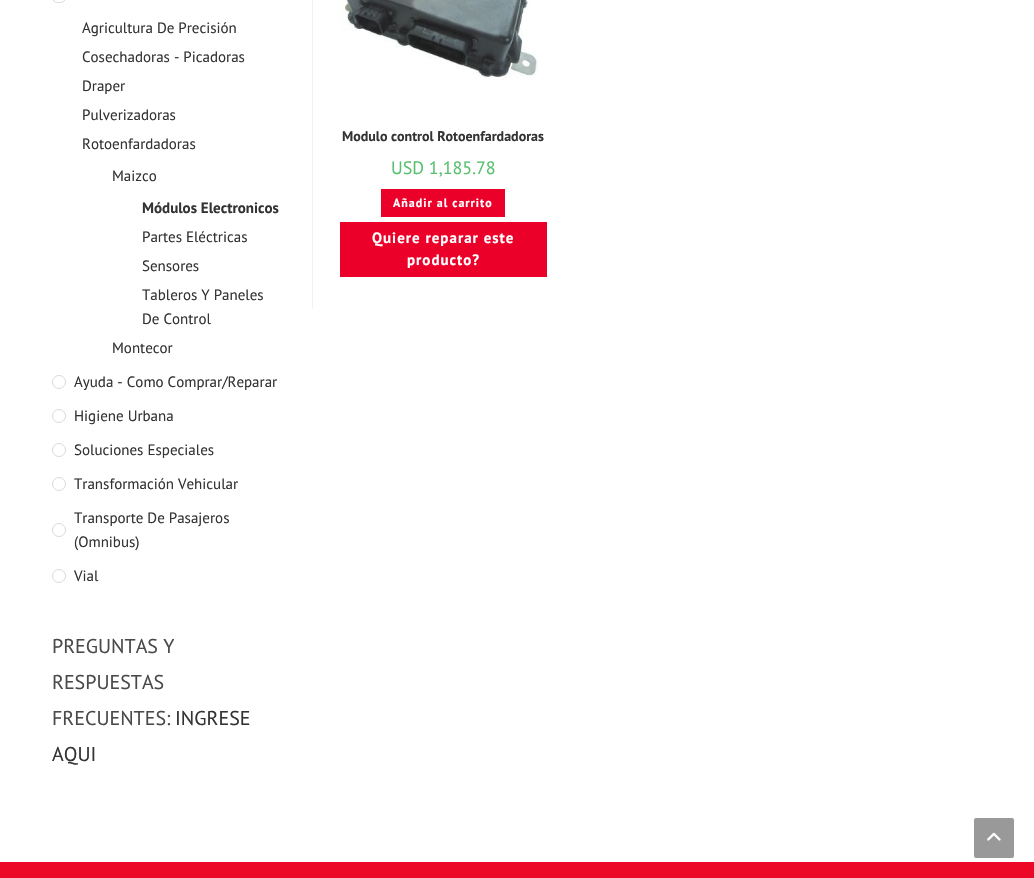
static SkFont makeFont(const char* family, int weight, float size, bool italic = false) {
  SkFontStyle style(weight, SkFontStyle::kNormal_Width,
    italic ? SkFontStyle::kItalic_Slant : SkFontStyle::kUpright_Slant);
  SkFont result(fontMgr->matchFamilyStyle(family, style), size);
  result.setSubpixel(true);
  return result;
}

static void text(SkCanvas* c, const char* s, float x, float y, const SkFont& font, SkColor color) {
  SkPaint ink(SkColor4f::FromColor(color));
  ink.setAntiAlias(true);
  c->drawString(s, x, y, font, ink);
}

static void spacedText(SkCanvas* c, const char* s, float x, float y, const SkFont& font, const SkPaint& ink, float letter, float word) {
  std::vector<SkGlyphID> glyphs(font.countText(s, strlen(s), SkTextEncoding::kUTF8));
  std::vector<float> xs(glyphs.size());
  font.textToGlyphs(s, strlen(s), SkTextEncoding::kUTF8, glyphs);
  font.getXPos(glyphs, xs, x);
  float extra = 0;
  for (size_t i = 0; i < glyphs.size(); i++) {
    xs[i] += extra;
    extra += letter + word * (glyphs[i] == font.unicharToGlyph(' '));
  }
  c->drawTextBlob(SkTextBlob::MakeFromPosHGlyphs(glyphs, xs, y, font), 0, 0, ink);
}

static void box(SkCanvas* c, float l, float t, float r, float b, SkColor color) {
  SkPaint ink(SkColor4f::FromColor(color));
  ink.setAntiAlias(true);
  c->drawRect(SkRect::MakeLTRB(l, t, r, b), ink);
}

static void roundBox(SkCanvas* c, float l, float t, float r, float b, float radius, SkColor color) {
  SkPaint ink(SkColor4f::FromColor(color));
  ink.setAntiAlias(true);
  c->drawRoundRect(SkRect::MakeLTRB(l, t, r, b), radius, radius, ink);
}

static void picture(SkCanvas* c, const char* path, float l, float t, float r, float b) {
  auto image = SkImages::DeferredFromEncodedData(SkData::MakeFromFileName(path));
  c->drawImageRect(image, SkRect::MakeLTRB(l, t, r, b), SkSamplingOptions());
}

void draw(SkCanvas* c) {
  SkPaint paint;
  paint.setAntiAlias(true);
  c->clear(0xffffffff);
  paint.setStyle(SkPaint::kStroke_Style);
  paint.setStrokeWidth(1);
  paint.setColor(0xffd9d9d9);
  c->drawRoundRect(SkRect::MakeLTRB(52.5f, -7.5f, 65.5f, 2.5f), 6.5f, 6.5f, paint);
  SkFont face1 = makeFont("PT Sans", 400, 15);
  text(c, "Agricultura De Precisión", 82, 33, face1, 0xff333333);
  text(c, "Cosechadoras - Picadoras", 82, 62, face1, 0xff333333);
  text(c, "Draper", 82, 91, face1, 0xff333333);
  text(c, "Pulverizadoras", 82, 120, face1, 0xff333333);
  text(c, "Rotoenfardadoras", 82, 149, face1, 0xff333333);
  text(c, "Maizco", 112, 181, face1, 0xff333333);
  SkFont face2 = makeFont("PT Sans", 700, 15);
  text(c, "Módulos Electronicos", 142, 213, face2, 0xff333333);
  text(c, "Partes Eléctricas", 142, 242, face1, 0xff333333);
  text(c, "Sensores", 142, 271, face1, 0xff333333);
  text(c, "Tableros Y Paneles", 142, 300, face1, 0xff333333);
  text(c, "De Control", 142, 324, face1, 0xff333333);
  text(c, "Montecor", 112, 353, face1, 0xff333333);
  c->drawCircle(59, 382, 6.5f, paint);
  text(c, "Ayuda - Como Comprar/Reparar", 74, 387, face1, 0xff333333);
  c->drawCircle(59, 416, 6.5f, paint);
  text(c, "Higiene Urbana", 74, 421, face1, 0xff333333);
  c->drawCircle(59, 450, 6.5f, paint);
  text(c, "Soluciones Especiales", 74, 455, face1, 0xff333333);
  c->drawCircle(59, 484, 6.5f, paint);
  text(c, "Transformación Vehicular", 74, 489, face1, 0xff333333);
  text(c, "Transporte De Pasajeros", 74, 523, face1, 0xff333333);
  c->drawCircle(59, 530, 6.5f, paint);
  text(c, "(Omnibus)", 74, 547, face1, 0xff333333);
  c->drawCircle(59, 576, 6.5f, paint);
  text(c, "Vial", 74, 581, face1, 0xff333333);
  SkFont face3 = makeFont("PT Sans", 400, 20);
  text(c, "PREGUNTAS Y", 52, 653, face3, 0xff4a4a4a);
  text(c, "RESPUESTAS", 52, 689, face3, 0xff4a4a4a);
  text(c, "FRECUENTES:", 52, 725, face3, 0xff4a4a4a);
  text(c, "INGRESE", 175, 725, face3, 0xff333333);
  text(c, "AQUI", 52, 761, face3, 0xff333333);
  box(c, 312, 0, 313, 309, 0xfff1f1f1);
  picture(c, "img_01.png", 340, 0, 539, 80);
  SkFont face4 = makeFont("PT Sans", 700, 14);
  text(c, "Modulo control Rotoenfardadoras", 342, 141, face4, 0xff333333);
  SkFont face5 = makeFont("PT Sans", 400, 18);
  text(c, "USD 1,185.78", 391, 174, face5, 0xff57bf6d);
  box(c, 381, 189, 505, 217, 0xffea0029);
  SkFont face6 = makeFont("PT Sans", 700, 12);
  paint.setStyle(SkPaint::kFill_Style);
  paint.setColor(0xffffffff);
  spacedText(c, "Añadir al carrito", 393, 207, face6, paint, 1, 0);
  box(c, 340, 222, 547, 277, 0xffea0029);
  spacedText(c, "Quiere reparar este", 372, 243, face2, paint, 1, 0);
  spacedText(c, "producto?", 407, 265, face2, paint, 1, 0);
  box(c, 0, 862, 1034, 878, 0xffec0928);
  roundBox(c, 974, 818, 1014, 858, 2, 0xff999999);
  picture(c, "img_02.png", 987, 832, 1001, 841);
}
